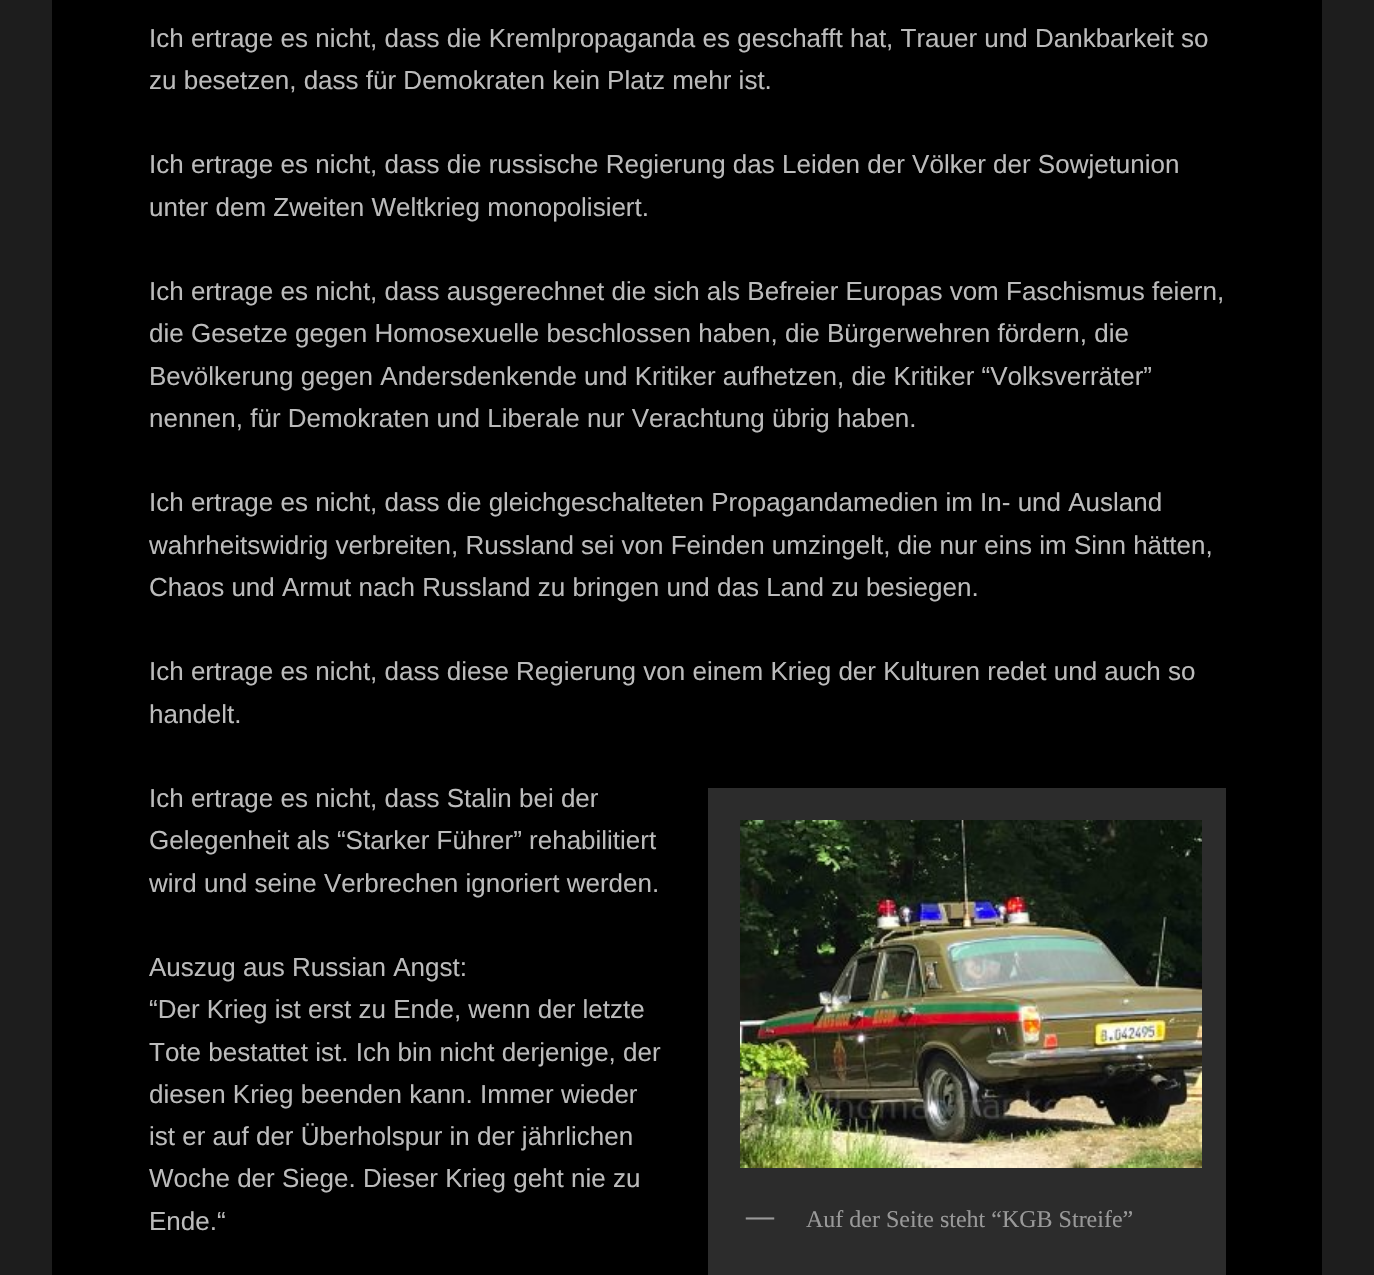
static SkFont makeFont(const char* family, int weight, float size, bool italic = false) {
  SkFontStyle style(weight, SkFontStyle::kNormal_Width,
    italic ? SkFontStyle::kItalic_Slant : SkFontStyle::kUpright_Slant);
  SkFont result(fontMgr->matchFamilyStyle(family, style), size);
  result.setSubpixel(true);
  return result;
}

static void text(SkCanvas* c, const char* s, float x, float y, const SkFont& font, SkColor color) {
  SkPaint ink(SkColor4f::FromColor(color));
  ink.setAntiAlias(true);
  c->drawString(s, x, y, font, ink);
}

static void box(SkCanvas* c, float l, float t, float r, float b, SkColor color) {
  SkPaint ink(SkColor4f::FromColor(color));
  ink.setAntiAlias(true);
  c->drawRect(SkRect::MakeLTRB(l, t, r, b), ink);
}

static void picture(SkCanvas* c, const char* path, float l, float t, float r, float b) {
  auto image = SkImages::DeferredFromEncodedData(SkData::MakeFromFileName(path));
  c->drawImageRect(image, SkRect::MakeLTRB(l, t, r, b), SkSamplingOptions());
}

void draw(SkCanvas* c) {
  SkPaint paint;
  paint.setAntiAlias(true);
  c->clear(0xff1d1d1d);
  box(c, 52, 0, 1322, 1275, 0xff000000);
  SkFont face1 = makeFont("Liberation Sans", 400, 26);
  text(c, "Ich ertrage es nicht, dass die Kremlpropaganda es geschafft hat, Trauer und Dankbarkeit so", 149, 47, face1, 0xffbbbbbb);
  text(c, "zu besetzen, dass für Demokraten kein Platz mehr ist.", 149, 89, face1, 0xffbbbbbb);
  text(c, "Ich ertrage es nicht, dass die russische Regierung das Leiden der Völker der Sowjetunion", 149, 173, face1, 0xffbbbbbb);
  text(c, "unter dem Zweiten Weltkrieg monopolisiert.", 149, 216, face1, 0xffbbbbbb);
  text(c, "Ich ertrage es nicht, dass ausgerechnet die sich als Befreier Europas vom Faschismus feiern,", 149, 300, face1, 0xffbbbbbb);
  text(c, "die Gesetze gegen Homosexuelle beschlossen haben, die Bürgerwehren fördern, die", 149, 342, face1, 0xffbbbbbb);
  text(c, "Bevölkerung gegen Andersdenkende und Kritiker aufhetzen, die Kritiker “Volksverräter”", 149, 385, face1, 0xffbbbbbb);
  text(c, "nennen, für Demokraten und Liberale nur Verachtung übrig haben.", 149, 427, face1, 0xffbbbbbb);
  text(c, "Ich ertrage es nicht, dass die gleichgeschalteten Propagandamedien im In- und Ausland", 149, 511, face1, 0xffbbbbbb);
  text(c, "wahrheitswidrig verbreiten, Russland sei von Feinden umzingelt, die nur eins im Sinn hätten,", 149, 554, face1, 0xffbbbbbb);
  text(c, "Chaos und Armut nach Russland zu bringen und das Land zu besiegen.", 149, 596, face1, 0xffbbbbbb);
  text(c, "Ich ertrage es nicht, dass diese Regierung von einem Krieg der Kulturen redet und auch so", 149, 680, face1, 0xffbbbbbb);
  text(c, "handelt.", 149, 723, face1, 0xffbbbbbb);
  text(c, "Ich ertrage es nicht, dass Stalin bei der", 149, 807, face1, 0xffbbbbbb);
  text(c, "Gelegenheit als “Starker Führer” rehabilitiert", 149, 849, face1, 0xffbbbbbb);
  text(c, "wird und seine Verbrechen ignoriert werden.", 149, 892, face1, 0xffbbbbbb);
  text(c, "Auszug aus Russian Angst:", 149, 976, face1, 0xffbbbbbb);
  text(c, "“Der Krieg ist erst zu Ende, wenn der letzte", 149, 1018, face1, 0xffbbbbbb);
  text(c, "Tote bestattet ist. Ich bin nicht derjenige, der", 149, 1061, face1, 0xffbbbbbb);
  text(c, "diesen Krieg beenden kann. Immer wieder", 149, 1103, face1, 0xffbbbbbb);
  text(c, "ist er auf der Überholspur in der jährlichen", 149, 1145, face1, 0xffbbbbbb);
  text(c, "Woche der Siege. Dieser Krieg geht nie zu", 149, 1187, face1, 0xffbbbbbb);
  text(c, "Ende.“", 149, 1230, face1, 0xffbbbbbb);
  box(c, 708, 788, 1226, 1275, 0xff2c2c2c);
  picture(c, "img_01.png", 740, 820, 1202, 1168);
  SkFont face2 = makeFont("Liberation Serif", 700, 28);
  text(c, "—", 746, 1225, face2, 0xff999999);
  SkFont face3 = makeFont("Liberation Serif", 400, 24);
  text(c, "Auf der Seite steht “KGB Streife”", 806, 1227, face3, 0xff999999);
}
